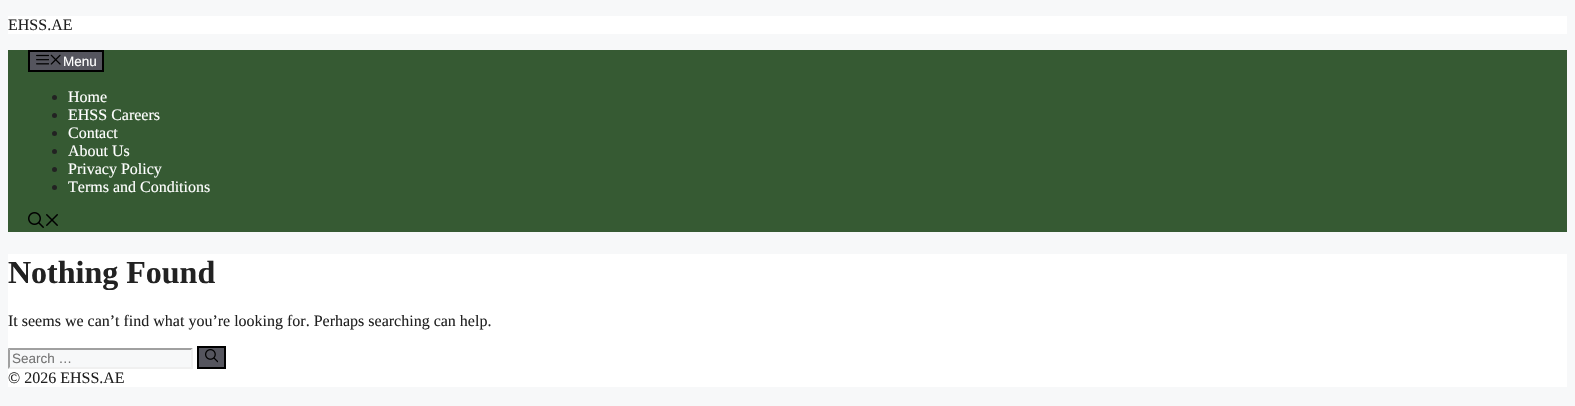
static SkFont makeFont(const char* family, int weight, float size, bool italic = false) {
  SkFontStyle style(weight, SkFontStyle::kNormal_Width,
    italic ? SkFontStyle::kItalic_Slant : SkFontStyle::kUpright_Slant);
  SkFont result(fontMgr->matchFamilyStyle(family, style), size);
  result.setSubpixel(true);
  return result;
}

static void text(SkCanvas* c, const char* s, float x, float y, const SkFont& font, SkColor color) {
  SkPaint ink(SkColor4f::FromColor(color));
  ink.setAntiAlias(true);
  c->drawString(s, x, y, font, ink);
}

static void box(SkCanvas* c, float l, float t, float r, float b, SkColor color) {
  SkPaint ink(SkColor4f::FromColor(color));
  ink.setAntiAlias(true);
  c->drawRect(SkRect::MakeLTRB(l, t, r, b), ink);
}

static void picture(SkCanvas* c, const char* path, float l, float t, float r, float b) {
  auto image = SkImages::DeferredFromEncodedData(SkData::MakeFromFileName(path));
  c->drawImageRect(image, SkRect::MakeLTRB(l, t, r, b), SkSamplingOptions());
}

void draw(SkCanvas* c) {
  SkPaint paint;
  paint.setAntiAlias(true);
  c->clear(0xfff7f8f9);
  box(c, 8, 16, 1567, 34, 0xffffffff);
  SkFont face1 = makeFont("Liberation Serif", 400, 16);
  text(c, "EHSS.AE", 8, 30, face1, 0xff222222);
  box(c, 8, 50, 1567, 232, 0xff365a33);
  paint.setColor(0xff55555e);
  c->drawRect(SkRect::MakeLTRB(29, 51, 103, 71), paint);
  paint.setStyle(SkPaint::kStroke_Style);
  paint.setStrokeWidth(2);
  paint.setColor(0xff000000);
  c->drawRect(SkRect::MakeLTRB(29, 51, 103, 71), paint);
  picture(c, "img_01.png", 36, 54, 49, 65);
  picture(c, "img_02.png", 50, 54, 61, 65);
  SkFont face2 = makeFont("Liberation Sans", 400, 13.5f);
  text(c, "Menu", 63, 66, face2, 0xffffffff);
  paint.setStyle(SkPaint::kFill_Style);
  paint.setColor(0xff222222);
  c->drawCircle(54.5f, 97.5f, 2.5f, paint);
  text(c, "Home", 68, 102, face1, 0xffffffff);
  c->drawCircle(54.5f, 115.5f, 2.5f, paint);
  text(c, "EHSS Careers", 68, 120, face1, 0xffffffff);
  c->drawCircle(54.5f, 133.5f, 2.5f, paint);
  text(c, "Contact", 68, 138, face1, 0xffffffff);
  c->drawCircle(54.5f, 151.5f, 2.5f, paint);
  text(c, "About Us", 68, 156, face1, 0xffffffff);
  c->drawCircle(54.5f, 169.5f, 2.5f, paint);
  text(c, "Privacy Policy", 68, 174, face1, 0xffffffff);
  c->drawCircle(54.5f, 187.5f, 2.5f, paint);
  text(c, "Terms and Conditions", 68, 192, face1, 0xffffffff);
  picture(c, "img_03.png", 28, 212, 44, 228);
  picture(c, "img_04.png", 46, 214, 58, 226);
  box(c, 8, 254, 1567, 387, 0xffffffff);
  SkFont face3 = makeFont("Liberation Serif", 700, 32);
  text(c, "Nothing Found", 8, 283, face3, 0xff222222);
  text(c, "It seems we can’t find what you’re looking for. Perhaps searching can help.", 8, 326, face1, 0xff222222);
  box(c, 8, 348, 193, 369, 0xfff7f8f9);
  paint.setColor(0xffa0a0a0);
  c->drawPath(SkPathBuilder().moveTo(8, 348).lineTo(193, 348).lineTo(191, 350).lineTo(10, 350).close().detach(), paint);
  paint.setColor(0xfff0f0f0);
  c->drawPath(SkPathBuilder().moveTo(193, 348).lineTo(193, 369).lineTo(191, 367).lineTo(191, 350).close().detach(), paint);
  c->drawPath(SkPathBuilder().moveTo(193, 369).lineTo(8, 369).lineTo(10, 367).lineTo(191, 367).close().detach(), paint);
  paint.setColor(0xffa0a0a0);
  c->drawPath(SkPathBuilder().moveTo(8, 369).lineTo(8, 348).lineTo(10, 350).lineTo(10, 367).close().detach(), paint);
  text(c, "Search …", 12, 363, face2, 0xff757575);
  paint.setColor(0xff55555e);
  c->drawRect(SkRect::MakeLTRB(198, 347, 225, 368), paint);
  paint.setStyle(SkPaint::kStroke_Style);
  paint.setColor(0xff000000);
  c->drawRect(SkRect::MakeLTRB(198, 347, 225, 368), paint);
  picture(c, "img_05.png", 205, 349, 218, 363);
  text(c, "© 2026 EHSS.AE", 8, 383, face1, 0xff222222);
}
